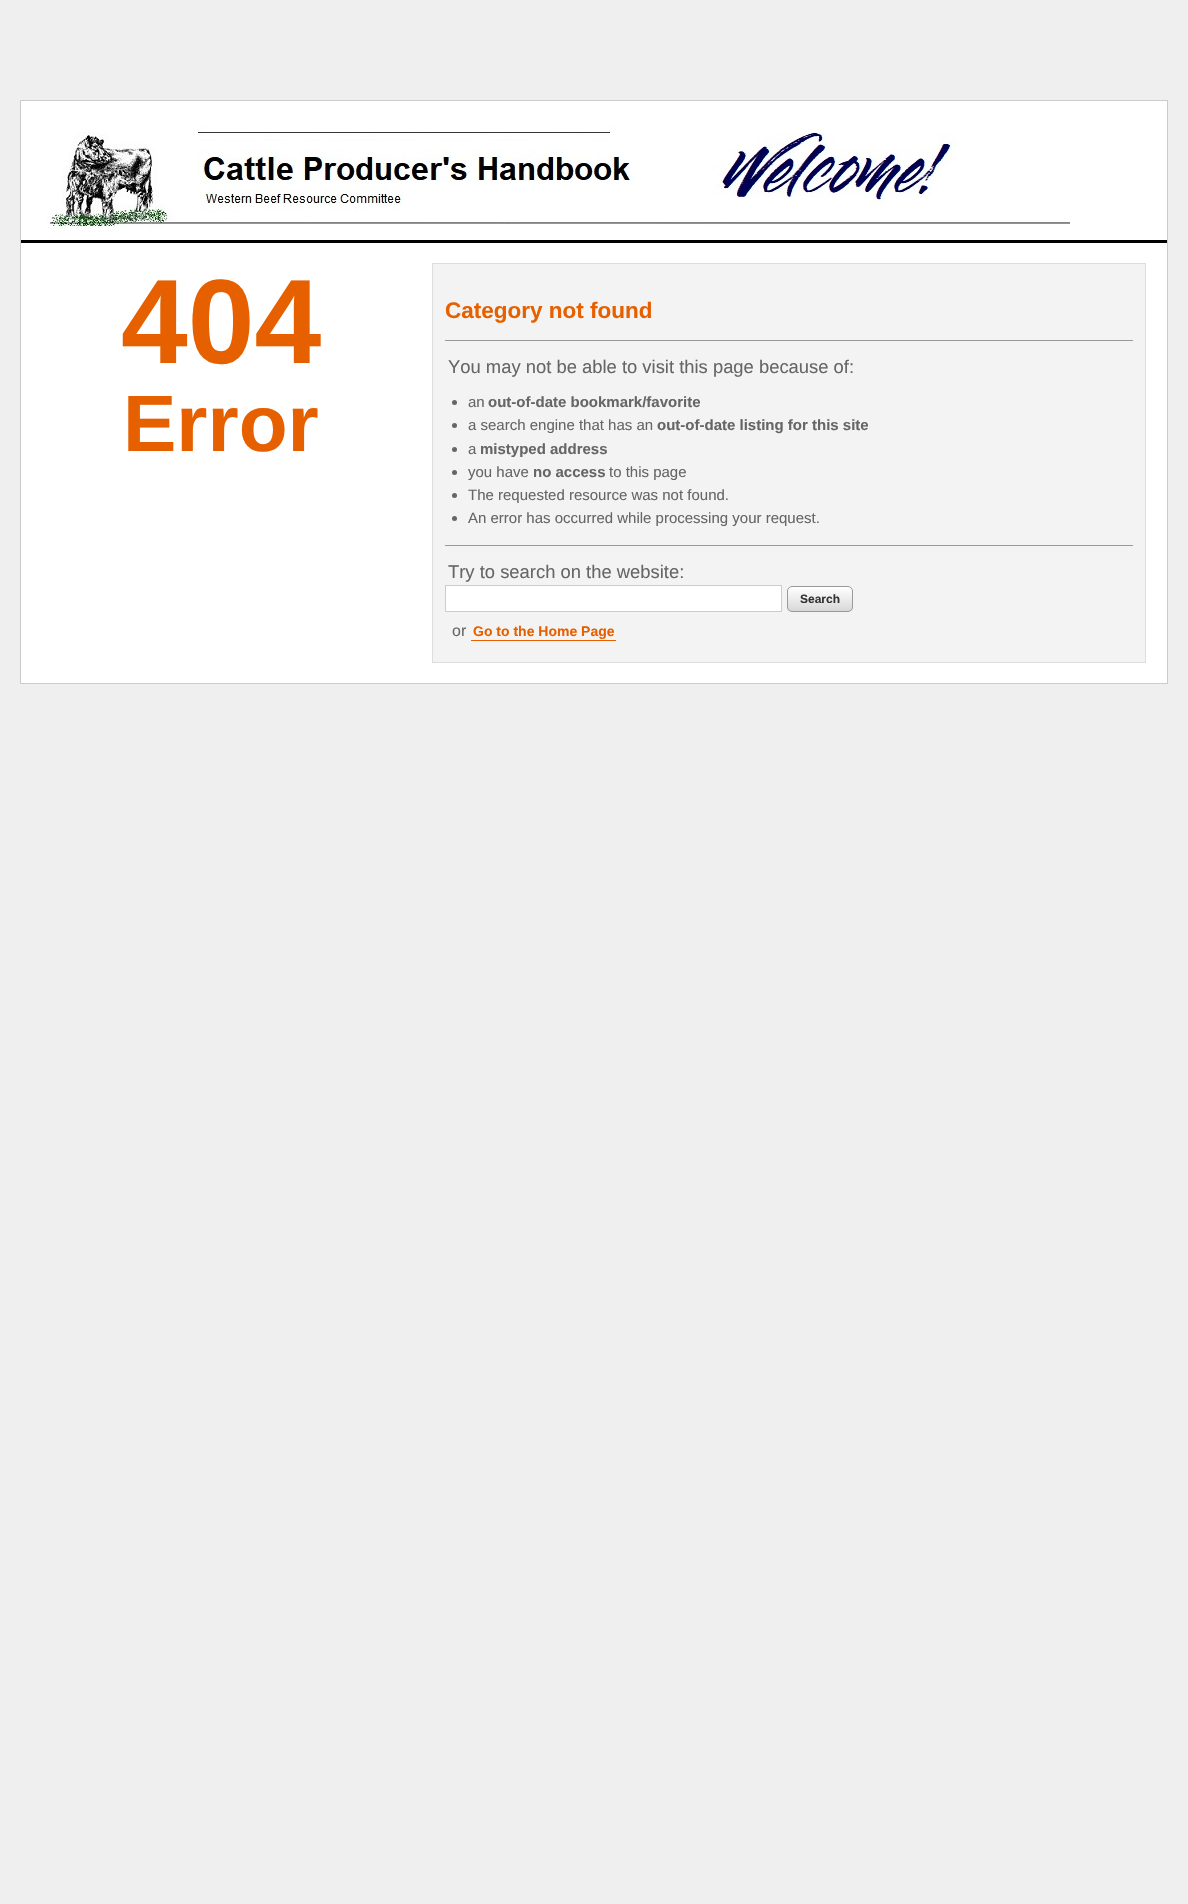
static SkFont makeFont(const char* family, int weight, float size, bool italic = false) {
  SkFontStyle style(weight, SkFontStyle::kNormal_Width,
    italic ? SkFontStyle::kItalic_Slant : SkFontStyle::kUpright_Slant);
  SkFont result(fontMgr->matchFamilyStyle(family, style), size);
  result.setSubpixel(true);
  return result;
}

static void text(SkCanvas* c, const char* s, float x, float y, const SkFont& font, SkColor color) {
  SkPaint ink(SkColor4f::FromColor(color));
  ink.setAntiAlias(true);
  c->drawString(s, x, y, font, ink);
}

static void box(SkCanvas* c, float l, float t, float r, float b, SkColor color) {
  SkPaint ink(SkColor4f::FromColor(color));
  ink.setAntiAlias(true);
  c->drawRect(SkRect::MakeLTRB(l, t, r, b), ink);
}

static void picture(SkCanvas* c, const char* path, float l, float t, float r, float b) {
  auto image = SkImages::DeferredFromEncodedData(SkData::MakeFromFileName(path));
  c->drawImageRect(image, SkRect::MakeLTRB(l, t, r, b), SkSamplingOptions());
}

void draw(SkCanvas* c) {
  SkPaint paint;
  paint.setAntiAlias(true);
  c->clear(0xffefefef);
  paint.setColor(0xffffffff);
  c->drawRect(SkRect::MakeLTRB(20.5f, 100.5f, 1167.5f, 683.5f), paint);
  paint.setStyle(SkPaint::kStroke_Style);
  paint.setStrokeWidth(1);
  paint.setColor(0xffcccccc);
  c->drawRect(SkRect::MakeLTRB(20.5f, 100.5f, 1167.5f, 683.5f), paint);
  box(c, 21, 240, 1167, 243, 0xff000000);
  picture(c, "img_01.png", 46, 126, 1070, 229);
  SkFont face1 = makeFont("Liberation Sans", 700, 120);
  text(c, "404", 121, 363, face1, 0xffe66000);
  SkFont face2 = makeFont("Liberation Sans", 700, 80);
  text(c, "Error", 123, 451, face2, 0xffe66000);
  paint.setStyle(SkPaint::kFill_Style);
  paint.setColor(0xfff3f3f3);
  c->drawRect(SkRect::MakeLTRB(432.5f, 263.5f, 1145.5f, 662.5f), paint);
  paint.setStyle(SkPaint::kStroke_Style);
  paint.setColor(0xffdddddd);
  c->drawRect(SkRect::MakeLTRB(432.5f, 263.5f, 1145.5f, 662.5f), paint);
  SkFont face3 = makeFont("Liberation Sans", 700, 22.5f);
  text(c, "Category not found", 445, 318, face3, 0xffe66000);
  box(c, 445, 340, 1133, 341, 0xff999999);
  SkFont face4 = makeFont("Liberation Sans", 400, 18.4f);
  text(c, "You may not be able to visit this page because of:", 448, 373, face4, 0xff666666);
  paint.setStyle(SkPaint::kFill_Style);
  paint.setColor(0xff666666);
  c->drawCircle(454.5f, 402.5f, 2.5f, paint);
  SkFont face5 = makeFont("Liberation Sans", 400, 15);
  text(c, "an", 468, 407, face5, 0xff666666);
  SkFont face6 = makeFont("Liberation Sans", 700, 15);
  text(c, "out-of-date bookmark/favorite", 488, 407, face6, 0xff666666);
  c->drawCircle(454.5f, 425.5f, 2.5f, paint);
  text(c, "a search engine that has an", 468, 430, face5, 0xff666666);
  text(c, "out-of-date listing for this site", 657, 430, face6, 0xff666666);
  c->drawCircle(454.5f, 449.5f, 2.5f, paint);
  text(c, "a", 468, 454, face5, 0xff666666);
  text(c, "mistyped address", 480, 454, face6, 0xff666666);
  c->drawCircle(454.5f, 472.5f, 2.5f, paint);
  text(c, "you have", 468, 477, face5, 0xff666666);
  text(c, "no access", 533, 477, face6, 0xff666666);
  text(c, "to this page", 609, 477, face5, 0xff666666);
  c->drawCircle(454.5f, 495.5f, 2.5f, paint);
  text(c, "The requested resource was not found.", 468, 500, face5, 0xff666666);
  c->drawCircle(454.5f, 518.5f, 2.5f, paint);
  text(c, "An error has occurred while processing your request.", 468, 523, face5, 0xff666666);
  box(c, 445, 545, 1133, 546, 0xff999999);
  text(c, "Try to search on the website:", 448, 578, face4, 0xff666666);
  paint.setColor(0xffffffff);
  c->drawRect(SkRect::MakeLTRB(445.5f, 585.5f, 781.5f, 611.5f), paint);
  paint.setStyle(SkPaint::kStroke_Style);
  paint.setColor(0xffcccccc);
  c->drawRect(SkRect::MakeLTRB(445.5f, 585.5f, 781.5f, 611.5f), paint);
  c->save();
  c->clipPath(SkPathBuilder().moveTo(792, 586).lineTo(848, 586).cubicTo(851, 586, 853, 588, 853, 591).lineTo(853, 607).cubicTo(853, 610, 851, 612, 848, 612).lineTo(792, 612).cubicTo(789, 612, 787, 610, 787, 607).lineTo(787, 591).cubicTo(787, 588, 789, 586, 792, 586).close().detach(), true);
  paint.setStyle(SkPaint::kFill_Style);
  {
    const SkColor colors[] = {0xffffffff, 0xffd8d8d8};
    const float stops[] = {0, 1};
    const SkPoint ends[] = {{820, 587}, {820, 611}};
    paint.setShader(SkGradientShader::MakeLinear(ends, colors, stops, 2, SkTileMode::kClamp));
    paint.setAlpha(255);
  }
  c->drawRect(SkRect::MakeLTRB(787, 587, 853, 611), paint);
  c->restore();
  paint.setStyle(SkPaint::kStroke_Style);
  paint.setShader(nullptr);
  paint.setColor(0xff999999);
  c->drawRoundRect(SkRect::MakeLTRB(787.5f, 586.5f, 852.5f, 611.5f), 4.5f, 4.5f, paint);
  SkFont face7 = makeFont("Liberation Sans", 700, 12);
  text(c, "Search", 800, 603, face7, 0xff333333);
  SkFont face8 = makeFont("Liberation Sans", 400, 16);
  text(c, "or", 452, 636, face8, 0xff666666);
  SkFont face9 = makeFont("Liberation Sans", 700, 14);
  text(c, "Go to the Home Page", 473, 636, face9, 0xffe66000);
  box(c, 471, 640, 616, 641, 0xffe66000);
}
